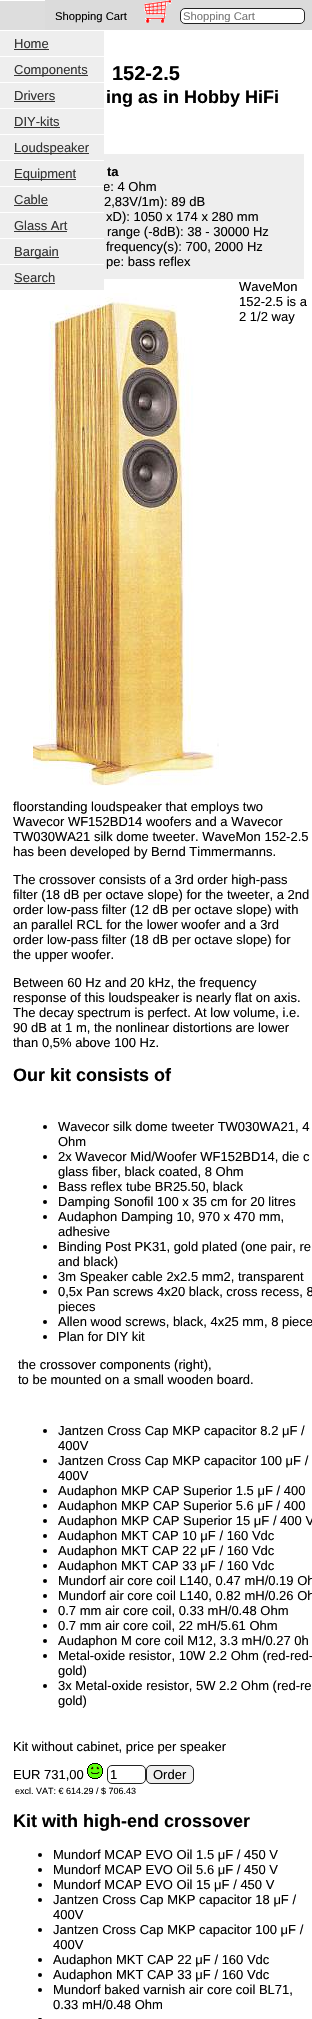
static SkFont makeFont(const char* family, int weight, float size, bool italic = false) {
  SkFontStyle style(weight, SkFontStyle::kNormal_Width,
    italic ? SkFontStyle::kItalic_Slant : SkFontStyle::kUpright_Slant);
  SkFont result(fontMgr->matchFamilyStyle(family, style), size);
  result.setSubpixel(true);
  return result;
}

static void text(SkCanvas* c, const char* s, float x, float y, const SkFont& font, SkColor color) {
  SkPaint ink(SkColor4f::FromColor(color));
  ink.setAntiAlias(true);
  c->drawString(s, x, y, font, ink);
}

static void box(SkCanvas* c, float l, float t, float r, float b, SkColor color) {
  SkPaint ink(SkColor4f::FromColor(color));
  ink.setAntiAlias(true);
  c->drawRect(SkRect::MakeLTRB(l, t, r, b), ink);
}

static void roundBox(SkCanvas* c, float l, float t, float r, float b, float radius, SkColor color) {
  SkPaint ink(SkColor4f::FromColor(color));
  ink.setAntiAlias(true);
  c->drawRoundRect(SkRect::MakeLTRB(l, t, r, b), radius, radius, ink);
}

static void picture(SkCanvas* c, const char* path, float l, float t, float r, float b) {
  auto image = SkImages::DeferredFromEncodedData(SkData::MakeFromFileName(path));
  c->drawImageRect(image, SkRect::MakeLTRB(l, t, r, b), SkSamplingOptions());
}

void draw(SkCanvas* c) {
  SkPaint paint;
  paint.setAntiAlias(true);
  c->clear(0xffffffff);
  box(c, 45, 0, 312, 30, 0xffdbdbdb);
  SkFont face1 = makeFont("Liberation Sans", 400, 11.25f);
  text(c, "Shopping Cart", 55, 20, face1, 0xff000000);
  picture(c, "img_01.png", 144, 0, 172, 23);
  paint.setColor(0xffffffff);
  c->drawRoundRect(SkRect::MakeLTRB(180.5f, 8.5f, 304.5f, 23.5f), 4.5f, 4.5f, paint);
  paint.setStyle(SkPaint::kStroke_Style);
  paint.setStrokeWidth(1);
  paint.setColor(0xff222222);
  c->drawRoundRect(SkRect::MakeLTRB(180.5f, 8.5f, 304.5f, 23.5f), 4.5f, 4.5f, paint);
  c->save();
  c->clipRect(SkRect::MakeLTRB(183, 10, 302, 22));
  text(c, "Shopping Cart", 183, 20, face1, 0xff777777);
  c->restore();
  box(c, 0, 1, 45, 30, 0xffdddddd);
  box(c, 0, 31, 104, 56, 0xffeeeeee);
  SkFont face2 = makeFont("Liberation Sans", 400, 13);
  text(c, "Home", 14, 48, face2, 0xff333333);
  box(c, 14, 49, 49, 50, 0xff333333);
  box(c, 0, 57, 104, 82, 0xffeeeeee);
  box(c, 14, 75, 88, 76, 0xff333333);
  text(c, "Components", 14, 74, face2, 0xff333333);
  box(c, 0, 83, 104, 108, 0xffeeeeee);
  text(c, "Drivers", 14, 100, face2, 0xff333333);
  box(c, 14, 101, 55, 102, 0xff333333);
  box(c, 0, 109, 104, 134, 0xffeeeeee);
  text(c, "DIY-kits", 14, 126, face2, 0xff333333);
  box(c, 14, 127, 60, 128, 0xff333333);
  box(c, 0, 135, 104, 160, 0xffeeeeee);
  box(c, 14, 153, 89, 154, 0xff333333);
  text(c, "Loudspeaker", 14, 152, face2, 0xff333333);
  box(c, 104, 154, 304, 279, 0xffeeeeee);
  text(c, "e: 4 Ohm", 103, 191, face2, 0xff000000);
  box(c, 0, 161, 104, 186, 0xffeeeeee);
  box(c, 14, 179, 76, 180, 0xff333333);
  text(c, "Equipment", 14, 178, face2, 0xff333333);
  box(c, 0, 187, 104, 212, 0xffeeeeee);
  box(c, 103, 186, 104, 187, 0xffffffff);
  text(c, "Cable", 14, 204, face2, 0xff333333);
  box(c, 14, 205, 48, 206, 0xff333333);
  box(c, 0, 213, 104, 238, 0xffeeeeee);
  text(c, "Glass Art", 14, 230, face2, 0xff333333);
  box(c, 14, 231, 67, 232, 0xff333333);
  box(c, 0, 239, 104, 264, 0xffeeeeee);
  box(c, 14, 257, 59, 258, 0xff333333);
  text(c, "Bargain", 14, 256, face2, 0xff333333);
  box(c, 0, 265, 104, 290, 0xffeeeeee);
  text(c, "Search", 14, 282, face2, 0xff333333);
  box(c, 14, 283, 55, 284, 0xff333333);
  SkFont face3 = makeFont("Liberation Sans", 700, 20);
  text(c, "152-2.5", 112, 80, face3, 0xff000000);
  SkFont face4 = makeFont("Liberation Sans", 700, 18);
  text(c, "ing as in Hobby HiFi", 106, 103, face4, 0xff000000);
  SkFont face5 = makeFont("Liberation Sans", 700, 13);
  text(c, "ta", 107, 176, face5, 0xff000000);
  text(c, "2,83V/1m): 89 dB", 104, 206, face2, 0xff000000);
  text(c, "xD): 1050 x 174 x 280 mm", 106, 221, face2, 0xff000000);
  text(c, "range (-8dB): 38 - 30000 Hz", 107, 236, face2, 0xff000000);
  text(c, "frequency(s): 700, 2000 Hz", 106, 251, face2, 0xff000000);
  text(c, "pe: bass reflex", 106, 266, face2, 0xff000000);
  text(c, "WaveMon", 239, 291, face2, 0xff000000);
  text(c, "152-2.5 is a", 239, 306, face2, 0xff000000);
  text(c, "2 1/2 way", 239, 321, face2, 0xff000000);
  text(c, "floorstanding loudspeaker that employs two", 13, 811, face2, 0xff000000);
  text(c, "Wavecor WF152BD14 woofers and a Wavecor", 13, 826, face2, 0xff000000);
  text(c, "TW030WA21 silk dome tweeter. WaveMon 152-2.5", 13, 841, face2, 0xff000000);
  text(c, "has been developed by Bernd Timmermanns.", 13, 856, face2, 0xff000000);
  picture(c, "img_02.png", 33, 293, 219, 786);
  text(c, "The crossover consists of a 3rd order high-pass", 13, 884, face2, 0xff000000);
  text(c, "filter (18 dB per octave slope) for the tweeter, a 2nd", 13, 899, face2, 0xff000000);
  text(c, "order low-pass filter (12 dB per octave slope) with", 13, 914, face2, 0xff000000);
  text(c, "an parallel RCL for the lower woofer and a 3rd", 13, 929, face2, 0xff000000);
  text(c, "order low-pass filter (18 dB per octave slope) for", 13, 944, face2, 0xff000000);
  text(c, "the upper woofer.", 13, 959, face2, 0xff000000);
  text(c, "Between 60 Hz and 20 kHz, the frequency", 13, 987, face2, 0xff000000);
  text(c, "response of this loudspeaker is nearly flat on axis.", 13, 1002, face2, 0xff000000);
  text(c, "The decay spectrum is perfect. At low volume, i.e.", 13, 1017, face2, 0xff000000);
  text(c, "90 dB at 1 m, the nonlinear distortions are lower", 13, 1032, face2, 0xff000000);
  text(c, "than 0,5% above 100 Hz.", 13, 1047, face2, 0xff000000);
  text(c, "Our kit consists of", 13, 1081, face4, 0xff000000);
  paint.setStyle(SkPaint::kFill_Style);
  paint.setColor(0xff000000);
  c->drawCircle(45, 1127, 2, paint);
  text(c, "Wavecor silk dome tweeter TW030WA21, 4", 58, 1131, face2, 0xff000000);
  text(c, "Ohm", 58, 1146, face2, 0xff000000);
  c->drawCircle(45, 1157, 2, paint);
  text(c, "2x Wavecor Mid/Woofer WF152BD14, die c", 58, 1161, face2, 0xff000000);
  text(c, "glass fiber, black coated, 8 Ohm", 58, 1176, face2, 0xff000000);
  c->drawCircle(45, 1187, 2, paint);
  text(c, "Bass reflex tube BR25.50, black", 58, 1191, face2, 0xff000000);
  c->drawCircle(45, 1202, 2, paint);
  text(c, "Damping Sonofil 100 x 35 cm for 20 litres", 58, 1206, face2, 0xff000000);
  c->drawCircle(45, 1217, 2, paint);
  text(c, "Audaphon Damping 10, 970 x 470 mm,", 58, 1221, face2, 0xff000000);
  text(c, "adhesive", 58, 1236, face2, 0xff000000);
  c->drawCircle(45, 1247, 2, paint);
  text(c, "Binding Post PK31, gold plated (one pair, re", 58, 1251, face2, 0xff000000);
  text(c, "and black)", 58, 1266, face2, 0xff000000);
  c->drawCircle(45, 1277, 2, paint);
  text(c, "3m Speaker cable 2x2.5 mm2, transparent", 58, 1281, face2, 0xff000000);
  c->drawCircle(45, 1292, 2, paint);
  text(c, "0,5x Pan screws 4x20 black, cross recess, 8", 58, 1296, face2, 0xff000000);
  text(c, "pieces", 58, 1311, face2, 0xff000000);
  c->drawCircle(45, 1322, 2, paint);
  text(c, "Allen wood screws, black, 4x25 mm, 8 piece", 58, 1326, face2, 0xff000000);
  c->drawCircle(45, 1337, 2, paint);
  text(c, "Plan for DIY kit", 58, 1341, face2, 0xff000000);
  text(c, "the crossover components (right),", 18, 1369, face2, 0xff000000);
  text(c, "to be mounted on a small wooden board.", 18, 1384, face2, 0xff000000);
  c->drawCircle(45, 1431, 2, paint);
  text(c, "Jantzen Cross Cap MKP capacitor 8.2 μF /", 58, 1435, face2, 0xff000000);
  text(c, "400V", 58, 1450, face2, 0xff000000);
  c->drawCircle(45, 1461, 2, paint);
  text(c, "Jantzen Cross Cap MKP capacitor 100 μF /", 58, 1465, face2, 0xff000000);
  text(c, "400V", 58, 1480, face2, 0xff000000);
  c->drawCircle(45, 1491, 2, paint);
  text(c, "Audaphon MKP CAP Superior 1.5 μF / 400", 58, 1495, face2, 0xff000000);
  c->drawCircle(45, 1506, 2, paint);
  text(c, "Audaphon MKP CAP Superior 5.6 μF / 400", 58, 1510, face2, 0xff000000);
  c->drawCircle(45, 1521, 2, paint);
  text(c, "Audaphon MKP CAP Superior 15 μF / 400 V", 58, 1525, face2, 0xff000000);
  c->drawCircle(45, 1536, 2, paint);
  text(c, "Audaphon MKT CAP 10 μF / 160 Vdc", 58, 1540, face2, 0xff000000);
  c->drawCircle(45, 1551, 2, paint);
  text(c, "Audaphon MKT CAP 22 μF / 160 Vdc", 58, 1555, face2, 0xff000000);
  c->drawCircle(45, 1566, 2, paint);
  text(c, "Audaphon MKT CAP 33 μF / 160 Vdc", 58, 1570, face2, 0xff000000);
  c->drawCircle(45, 1581, 2, paint);
  text(c, "Mundorf air core coil L140, 0.47 mH/0.19 Oh", 58, 1585, face2, 0xff000000);
  c->drawCircle(45, 1596, 2, paint);
  text(c, "Mundorf air core coil L140, 0.82 mH/0.26 Oh", 58, 1600, face2, 0xff000000);
  c->drawCircle(45, 1611, 2, paint);
  text(c, "0.7 mm air core coil, 0.33 mH/0.48 Ohm", 58, 1615, face2, 0xff000000);
  c->drawCircle(45, 1626, 2, paint);
  text(c, "0.7 mm air core coil, 22 mH/5.61 Ohm", 58, 1630, face2, 0xff000000);
  c->drawCircle(45, 1641, 2, paint);
  text(c, "Audaphon M core coil M12, 3.3 mH/0.27 0h", 58, 1645, face2, 0xff000000);
  c->drawCircle(45, 1656, 2, paint);
  text(c, "Metal-oxide resistor, 10W 2.2 Ohm (red-red-", 58, 1660, face2, 0xff000000);
  text(c, "gold)", 58, 1675, face2, 0xff000000);
  c->drawCircle(45, 1686, 2, paint);
  text(c, "3x Metal-oxide resistor, 5W 2.2 Ohm (red-re", 58, 1690, face2, 0xff000000);
  text(c, "gold)", 58, 1705, face2, 0xff000000);
  text(c, "Kit without cabinet, price per speaker", 13, 1751, face2, 0xff000000);
  text(c, "EUR 731,00", 13, 1779, face2, 0xff000000);
  picture(c, "img_03.png", 87, 1763, 103, 1779);
  paint.setStyle(SkPaint::kStroke_Style);
  paint.setColor(0xff222222);
  c->drawRoundRect(SkRect::MakeLTRB(107.5f, 1765.5f, 145.5f, 1783.5f), 4.5f, 4.5f, paint);
  text(c, "1", 110, 1779, face2, 0xff000000);
  paint.setStyle(SkPaint::kFill_Style);
  paint.setColor(0xffefefef);
  c->drawRoundRect(SkRect::MakeLTRB(146.5f, 1765.5f, 193.5f, 1783.5f), 4.5f, 4.5f, paint);
  paint.setStyle(SkPaint::kStroke_Style);
  paint.setColor(0xff222222);
  c->drawRoundRect(SkRect::MakeLTRB(146.5f, 1765.5f, 193.5f, 1783.5f), 4.5f, 4.5f, paint);
  text(c, "Order", 153, 1779, face2, 0xff000000);
  SkFont face6 = makeFont("Liberation Sans", 400, 9);
  text(c, "excl. VAT: € 614.29 / $ 706.43", 15, 1794, face6, 0xff000000);
  text(c, "Kit with high-end crossover", 13, 1827, face4, 0xff000000);
  paint.setStyle(SkPaint::kFill_Style);
  paint.setColor(0xff000000);
  c->drawCircle(40, 1855, 2, paint);
  text(c, "Mundorf MCAP EVO Oil 1.5 μF / 450 V", 53, 1859, face2, 0xff000000);
  c->drawCircle(40, 1870, 2, paint);
  text(c, "Mundorf MCAP EVO Oil 5.6 μF / 450 V", 53, 1874, face2, 0xff000000);
  c->drawCircle(40, 1885, 2, paint);
  text(c, "Mundorf MCAP EVO Oil 15 μF / 450 V", 53, 1889, face2, 0xff000000);
  c->drawCircle(40, 1900, 2, paint);
  text(c, "Jantzen Cross Cap MKP capacitor 18 μF /", 53, 1904, face2, 0xff000000);
  text(c, "400V", 53, 1919, face2, 0xff000000);
  c->drawCircle(40, 1930, 2, paint);
  text(c, "Jantzen Cross Cap MKP capacitor 100 μF /", 53, 1934, face2, 0xff000000);
  text(c, "400V", 53, 1949, face2, 0xff000000);
  c->drawCircle(40, 1960, 2, paint);
  text(c, "Audaphon MKT CAP 22 μF / 160 Vdc", 53, 1964, face2, 0xff000000);
  c->drawCircle(40, 1975, 2, paint);
  text(c, "Audaphon MKT CAP 33 μF / 160 Vdc", 53, 1979, face2, 0xff000000);
  c->drawCircle(40, 1990, 2, paint);
  text(c, "Mundorf baked varnish air core coil BL71,", 53, 1994, face2, 0xff000000);
  text(c, "0.33 mH/0.48 Ohm", 53, 2009, face2, 0xff000000);
  roundBox(c, 38, 2018, 42, 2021, 2, 0xff000000);
}
